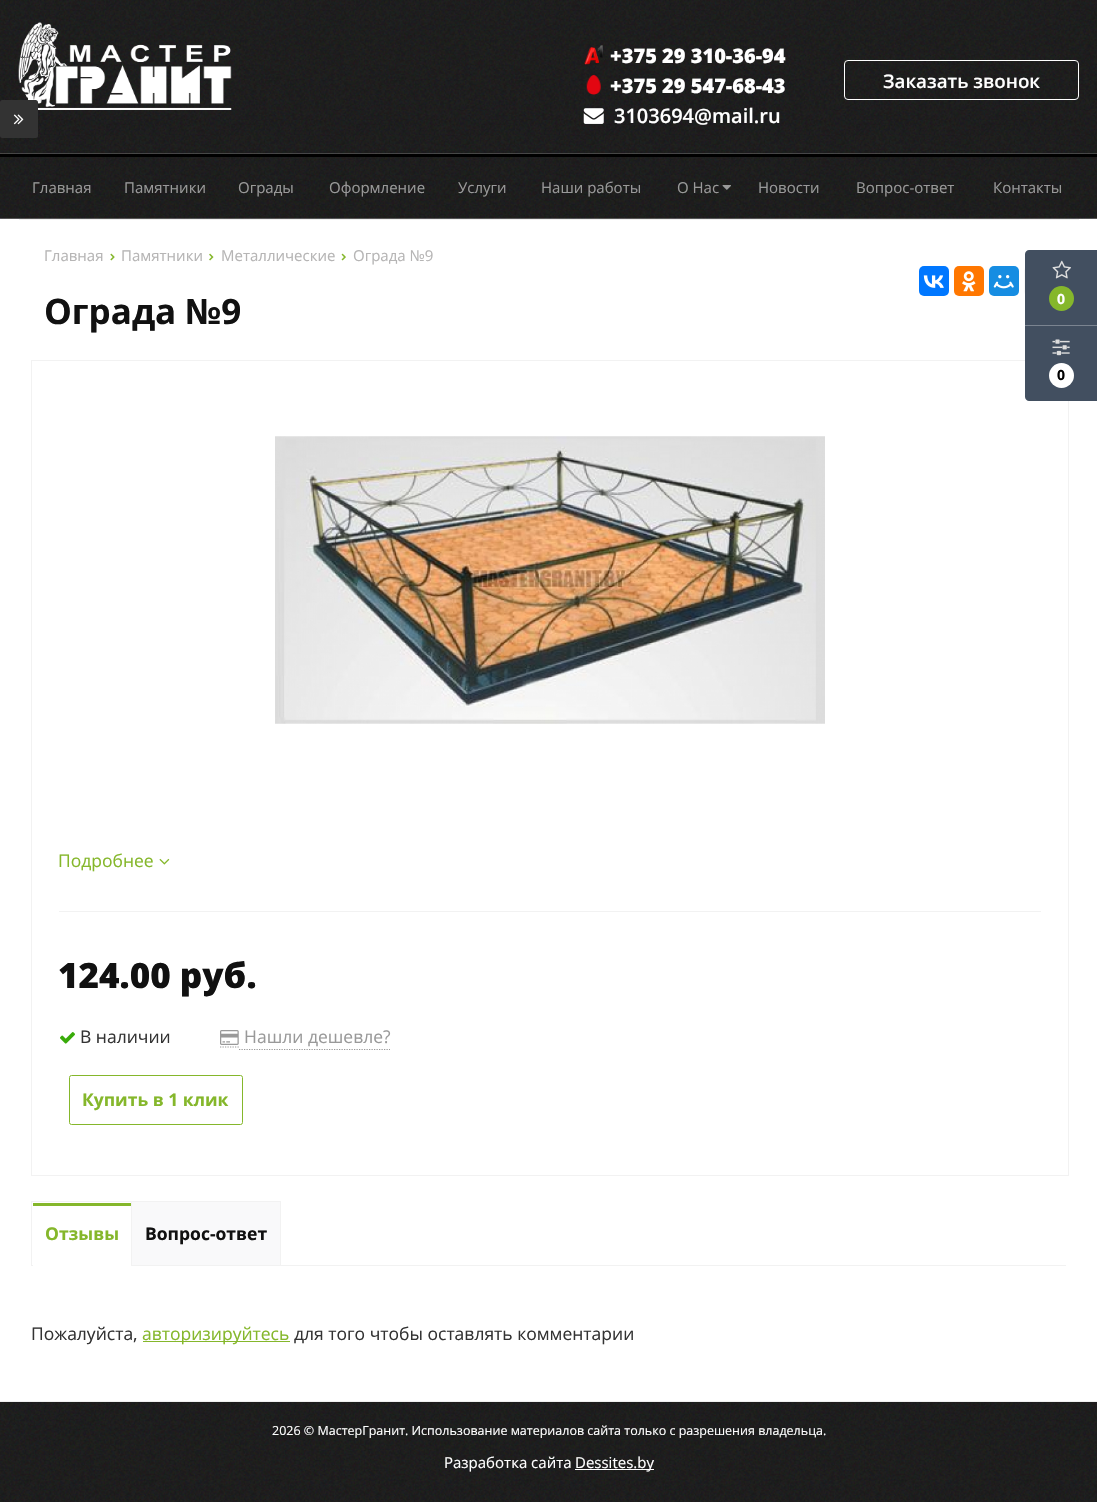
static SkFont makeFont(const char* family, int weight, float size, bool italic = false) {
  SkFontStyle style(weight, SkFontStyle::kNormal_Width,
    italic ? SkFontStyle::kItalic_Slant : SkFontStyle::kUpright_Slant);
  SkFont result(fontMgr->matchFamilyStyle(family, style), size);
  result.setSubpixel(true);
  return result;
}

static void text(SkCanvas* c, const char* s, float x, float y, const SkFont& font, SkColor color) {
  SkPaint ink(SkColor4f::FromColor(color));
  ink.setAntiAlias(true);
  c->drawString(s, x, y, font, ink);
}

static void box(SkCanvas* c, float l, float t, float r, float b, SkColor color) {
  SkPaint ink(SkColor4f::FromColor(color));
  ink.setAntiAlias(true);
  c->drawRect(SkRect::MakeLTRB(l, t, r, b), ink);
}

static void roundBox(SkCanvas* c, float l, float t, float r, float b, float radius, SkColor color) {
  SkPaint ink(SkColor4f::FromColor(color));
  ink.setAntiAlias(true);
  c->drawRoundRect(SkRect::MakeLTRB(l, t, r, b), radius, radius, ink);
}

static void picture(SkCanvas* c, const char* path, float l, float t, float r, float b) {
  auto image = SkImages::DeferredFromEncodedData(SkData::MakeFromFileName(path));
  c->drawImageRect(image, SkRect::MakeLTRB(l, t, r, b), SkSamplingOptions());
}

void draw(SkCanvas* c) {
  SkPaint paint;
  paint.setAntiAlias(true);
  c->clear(0xffffffff);
  picture(c, "img_01.png", 0, 0, 1097, 154);
  picture(c, "img_02.png", 18, 22, 232, 110);
  picture(c, "img_03.png", 584, 45, 603, 65);
  SkFont face1 = makeFont("Open Sans", 800, 20);
  text(c, "+375 29 310-36-94", 610, 63, face1, 0xffffffff);
  picture(c, "img_04.png", 586, 75, 601, 95);
  text(c, "+375 29 547-68-43", 610, 93, face1, 0xffffffff);
  picture(c, "img_05.png", 583, 108, 604, 124);
  SkFont face2 = makeFont("Open Sans", 600, 20);
  text(c, "3103694@mail.ru", 614, 123, face2, 0xffffffff);
  paint.setStyle(SkPaint::kStroke_Style);
  paint.setStrokeWidth(1);
  paint.setColor(0xffffffff);
  c->drawRoundRect(SkRect::MakeLTRB(844.5f, 60.5f, 1078.5f, 99.5f), 3.5f, 3.5f, paint);
  SkFont face3 = makeFont("Open Sans", 600, 18.75f);
  text(c, "Заказать звонок", 883, 88, face3, 0xffffffff);
  picture(c, "img_06.png", 0, 153, 1097, 219);
  box(c, 0, 154, 1097, 157, 0xff000000);
  SkFont face4 = makeFont("Open Sans", 400, 15);
  text(c, "Главная", 32, 193, face4, 0xff999999);
  text(c, "Памятники", 124, 193, face4, 0xff999999);
  text(c, "Ограды", 238, 193, face4, 0xff999999);
  text(c, "Оформление", 329, 193, face4, 0xff999999);
  text(c, "Услуги", 458, 193, face4, 0xff999999);
  text(c, "Наши работы", 541, 193, face4, 0xff999999);
  text(c, "О Нас", 677, 193, face4, 0xff999999);
  picture(c, "img_07.png", 722, 185, 731, 190);
  text(c, "Новости", 758, 193, face4, 0xff999999);
  text(c, "Вопрос-ответ", 856, 193, face4, 0xff999999);
  text(c, "Контакты", 993, 193, face4, 0xff999999);
  box(c, 19, 219, 1079, 220, 0xffefefef);
  text(c, "Главная", 44, 261, face4, 0xffb6b5b5);
  picture(c, "img_08.png", 110, 253, 115, 261);
  text(c, "Памятники", 121, 261, face4, 0xffb6b5b5);
  picture(c, "img_09.png", 209, 253, 214, 261);
  text(c, "Металлические", 221, 261, face4, 0xffb6b5b5);
  picture(c, "img_10.png", 341, 253, 346, 261);
  text(c, "Ограда №9", 353, 261, face4, 0xffb6b5b5);
  roundBox(c, 919, 266, 949, 296, 5, 0xff0077ff);
  picture(c, "img_11.png", 923, 275, 944, 288);
  roundBox(c, 954, 266, 984, 296, 5, 0xffff7700);
  picture(c, "img_12.png", 962, 271, 976, 292);
  roundBox(c, 989, 266, 1019, 296, 5, 0xff168de2);
  picture(c, "img_13.png", 993, 275, 1014, 289);
  roundBox(c, 1024, 266, 1054, 296, 5, 0xfff7f7f7);
  SkFont face5 = makeFont("Open Sans", 700, 35);
  text(c, "Ограда №9", 44, 324, face5, 0xff111111);
  paint.setColor(0xfff2f2f2);
  c->drawRect(SkRect::MakeLTRB(31.5f, 360.5f, 1068.5f, 1175.5f), paint);
  paint.setStyle(SkPaint::kFill_Style);
  paint.setColor(0xff424f60);
  c->drawPath(SkPathBuilder().moveTo(1029, 250).lineTo(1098, 250).lineTo(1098, 401).lineTo(1029, 401).cubicTo(1027, 401, 1025, 399, 1025, 397).lineTo(1025, 254).cubicTo(1025, 252, 1027, 250, 1029, 250).close().detach(), paint);
  box(c, 1025, 325, 1097, 326, 0xff7b8490);
  picture(c, "img_14.png", 1052, 260, 1071, 279);
  paint.setColor(0xff85b72b);
  c->drawCircle(1061.5f, 298.5f, 12.5f, paint);
  SkFont face6 = makeFont("Open Sans", 700, 14);
  text(c, "0", 1057, 304, face6, 0xffffffff);
  picture(c, "img_15.png", 1052, 339, 1070, 356);
  paint.setColor(0xffffffff);
  c->drawCircle(1061.5f, 375.5f, 12.5f, paint);
  text(c, "0", 1057, 380, face6, 0xff000000);
  roundBox(c, 0, 100, 38, 138, 2.5f, 0xff333333);
  picture(c, "img_16.png", 13, 114, 24, 125);
  picture(c, "img_17.png", 275, 436, 825, 724);
  box(c, 59, 911, 1041, 912, 0xfff2f2f2);
  SkFont face7 = makeFont("Open Sans", 400, 17.5f);
  text(c, "Подробнее", 58, 867, face7, 0xff85b72b);
  picture(c, "img_18.png", 159, 858, 170, 865);
  SkFont face8 = makeFont("Open Sans", 800, 35);
  text(c, "124.00 руб.", 58, 988, face8, 0xff111111);
  picture(c, "img_19.png", 60, 1032, 75, 1044);
  text(c, "В наличии", 80, 1043, face7, 0xff333333);
  paint.setStyle(SkPaint::kStroke_Style);
  paint.setStrokeWidth(1.2f);
  paint.setColor(0xff999999);
  paint.setPathEffect(SkDashPathEffect::Make({{1.25f, 1.25f}}, 0));
  c->drawPath(SkPathBuilder().moveTo(220, 1047).lineTo(239, 1047).detach(), paint);
  paint.setPathEffect(nullptr);
  paint.setPathEffect(SkDashPathEffect::Make({{1.25f, 1.25f}}, 0));
  c->drawPath(SkPathBuilder().moveTo(239, 1049.5f).lineTo(390, 1049.5f).detach(), paint);
  paint.setPathEffect(nullptr);
  picture(c, "img_20.png", 220, 1030, 239, 1045);
  text(c, "Нашли дешевле?", 244, 1043, face7, 0xff999999);
  paint.setStrokeWidth(1);
  paint.setColor(0xff85b72b);
  c->drawRoundRect(SkRect::MakeLTRB(69.5f, 1075.5f, 242.5f, 1124.5f), 2, 2, paint);
  SkFont face9 = makeFont("Open Sans", 700, 17.5f);
  text(c, "Купить в 1 клик", 82, 1106, face9, 0xff85b72b);
  box(c, 31, 1265, 1066, 1266, 0xfff2f2f2);
  box(c, 31, 1201, 281, 1202, 0xfff2f2f2);
  box(c, 31, 1201, 32, 1265, 0xfff2f2f2);
  box(c, 33, 1203, 131, 1206, 0xff85b72b);
  text(c, "Отзывы", 45, 1240, face9, 0xff85b72b);
  box(c, 33, 1265, 131, 1266, 0xffffffff);
  box(c, 132, 1202, 280, 1265, 0xfff9f9fa);
  box(c, 280, 1201, 281, 1265, 0xfff2f2f2);
  box(c, 131, 1201, 132, 1265, 0xfff2f2f2);
  text(c, "Вопрос-ответ", 145, 1240, face9, 0xff111111);
  text(c, "Пожалуйста,", 31, 1340, face7, 0xff333333);
  box(c, 143, 1341, 290, 1342, 0xff85b72b);
  text(c, "авторизируйтесь", 142, 1340, face7, 0xff85b72b);
  text(c, "для того чтобы оставлять комментарии", 294, 1340, face7, 0xff333333);
  picture(c, "img_21.png", 0, 1402, 1097, 1502);
  box(c, 0, 1401, 1097, 1402, 0xfff0f0f0);
  SkFont face10 = makeFont("Open Sans", 400, 12.5f);
  text(c, "2026 © МастерГранит. Использование материалов сайта только с разрешения владельца.", 272, 1435, face10, 0xffffffff);
  text(c, "Разработка сайта", 444, 1468, face4, 0xffffffff);
  box(c, 575, 1469, 654, 1470, 0xffffffff);
  text(c, "Dessites.by", 575, 1468, face4, 0xffffffff);
}
